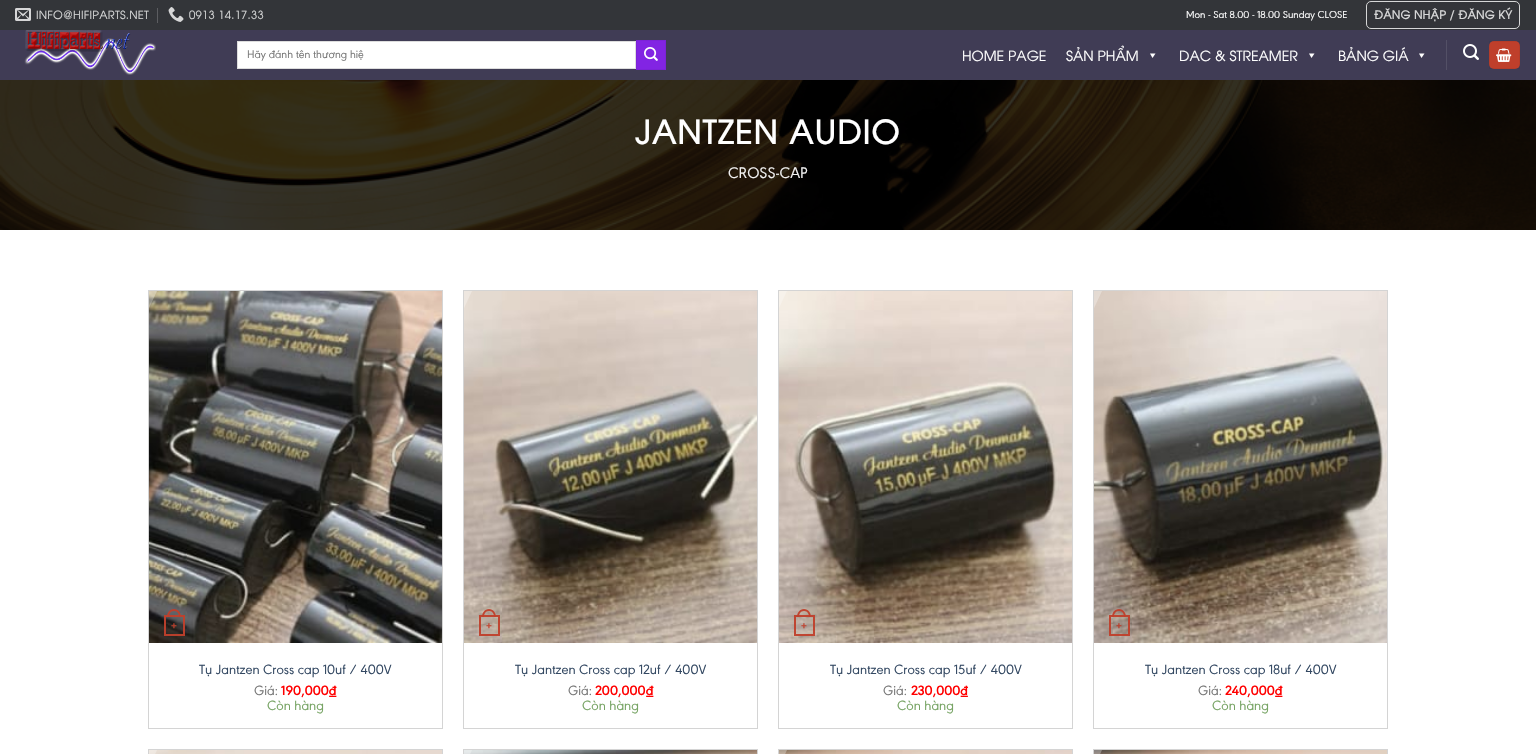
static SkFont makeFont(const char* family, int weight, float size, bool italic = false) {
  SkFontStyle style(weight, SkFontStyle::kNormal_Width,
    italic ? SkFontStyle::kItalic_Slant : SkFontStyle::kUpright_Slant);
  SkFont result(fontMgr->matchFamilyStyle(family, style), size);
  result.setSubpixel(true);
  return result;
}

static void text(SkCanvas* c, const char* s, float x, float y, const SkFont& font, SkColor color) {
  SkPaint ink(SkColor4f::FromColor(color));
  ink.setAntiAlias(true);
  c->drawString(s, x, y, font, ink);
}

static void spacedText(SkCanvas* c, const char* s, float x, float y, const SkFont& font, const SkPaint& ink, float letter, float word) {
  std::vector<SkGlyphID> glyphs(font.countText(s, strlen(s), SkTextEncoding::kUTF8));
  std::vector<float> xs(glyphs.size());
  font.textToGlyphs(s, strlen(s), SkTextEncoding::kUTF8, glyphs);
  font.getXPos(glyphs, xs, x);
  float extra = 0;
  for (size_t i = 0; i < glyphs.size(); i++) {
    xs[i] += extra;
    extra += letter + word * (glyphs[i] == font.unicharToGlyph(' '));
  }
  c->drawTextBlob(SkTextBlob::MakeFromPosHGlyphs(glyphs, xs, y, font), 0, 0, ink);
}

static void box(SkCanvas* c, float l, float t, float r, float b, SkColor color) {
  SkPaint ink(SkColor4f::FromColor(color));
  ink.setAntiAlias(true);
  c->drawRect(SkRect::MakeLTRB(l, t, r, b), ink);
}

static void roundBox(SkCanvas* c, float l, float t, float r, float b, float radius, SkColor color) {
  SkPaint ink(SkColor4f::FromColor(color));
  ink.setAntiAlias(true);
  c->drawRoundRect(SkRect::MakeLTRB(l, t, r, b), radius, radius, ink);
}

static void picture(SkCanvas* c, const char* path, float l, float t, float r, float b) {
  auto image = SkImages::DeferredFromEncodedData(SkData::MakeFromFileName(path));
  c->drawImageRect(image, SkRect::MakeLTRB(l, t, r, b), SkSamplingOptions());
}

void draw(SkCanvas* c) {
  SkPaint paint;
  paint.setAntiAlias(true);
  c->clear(0xffffffff);
  box(c, 0, 0, 1536, 30, 0xff333539);
  picture(c, "img_01.png", 15, 8, 31, 21);
  SkFont face1 = makeFont("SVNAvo", 400, 11.25f);
  paint.setColor(0xffd6d7d7);
  spacedText(c, "INFO@HIFIPARTS.NET", 36, 19, face1, paint, 0.25f, 0);
  box(c, 157, 8, 158, 23, 0xff5c5d61);
  picture(c, "img_02.png", 168, 7, 184, 22);
  spacedText(c, "0913 14.17.33", 189, 19, face1, paint, 0.25f, 0);
  SkFont face2 = makeFont("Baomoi", 400, 10.5f);
  text(c, "Mon - Sat 8.00 - 18.00 Sunday CLOSE", 1186, 18, face2, 0xffffffff);
  paint.setStyle(SkPaint::kStroke_Style);
  paint.setStrokeWidth(1);
  c->drawRoundRect(SkRect::MakeLTRB(1366.5f, 1.5f, 1519.5f, 28.5f), 4.5f, 4.5f, paint);
  SkFont face3 = makeFont("SVNAvo", 700, 11.25f);
  paint.setStyle(SkPaint::kFill_Style);
  spacedText(c, "ĐĂNG NHẬP / ĐĂNG KÝ", 1374, 19, face3, paint, 0.3f, 0);
  box(c, 0, 30, 1536, 80, 0xff403c55);
  picture(c, "img_03.png", 24, 30, 156, 75);
  paint.setColor(0xffffffff);
  c->drawRect(SkRect::MakeLTRB(237.5f, 41.5f, 635.5f, 68.5f), paint);
  paint.setStyle(SkPaint::kStroke_Style);
  paint.setColor(0xffdddddd);
  c->drawRect(SkRect::MakeLTRB(237.5f, 41.5f, 635.5f, 68.5f), paint);
  SkFont face4 = makeFont("Baomoi", 400, 11.5f);
  text(c, "Hãy đánh tên thương hiệ", 247, 58, face4, 0xff777777);
  paint.setStyle(SkPaint::kFill_Style);
  paint.setColor(0xff8224e3);
  c->drawRect(SkRect::MakeLTRB(636.5f, 40.5f, 665.5f, 69.5f), paint);
  paint.setStyle(SkPaint::kStroke_Style);
  paint.setColor(0xff7c22d8);
  c->drawRect(SkRect::MakeLTRB(636.5f, 40.5f, 665.5f, 69.5f), paint);
  picture(c, "img_04.png", 644, 47, 658, 61);
  SkFont face5 = makeFont("SVNAvo", 400, 14);
  text(c, "HOME PAGE", 962, 61, face5, 0xffffffff);
  text(c, "SẢN PHẨM", 1066, 61, face5, 0xffffffff);
  paint.setStyle(SkPaint::kFill_Style);
  paint.setColor(0xffffffff);
  c->drawPath(SkPathBuilder().moveTo(1155.5f, 53.5f).lineTo(1152.5f, 58).lineTo(1150, 53.5f).close().detach(), paint);
  text(c, "DAC & STREAMER", 1179, 61, face5, 0xffffffff);
  c->drawPath(SkPathBuilder().moveTo(1314.5f, 53.5f).lineTo(1311.5f, 58).lineTo(1309, 53.5f).close().detach(), paint);
  text(c, "BẢNG GIÁ", 1338, 61, face5, 0xffffffff);
  c->drawPath(SkPathBuilder().moveTo(1424.5f, 53.5f).lineTo(1421.5f, 58).lineTo(1419, 53.5f).close().detach(), paint);
  box(c, 1446, 40, 1447, 70, 0xff535066);
  picture(c, "img_05.png", 1463, 44, 1479, 60);
  roundBox(c, 1489, 41, 1520, 69, 5, 0xffbf3f2b);
  paint.setStyle(SkPaint::kStroke_Style);
  paint.setColor(0x0d000000);
  c->drawRect(SkRect::MakeLTRB(1489.5f, 41.5f, 1519.5f, 68.5f), paint);
  picture(c, "img_06.png", 1496, 48, 1512, 62);
  picture(c, "img_07.png", 0, 80, 1536, 230);
  SkFont face6 = makeFont("SVNAvo", 700, 32);
  paint.setStyle(SkPaint::kFill_Style);
  paint.setColor(0xffffffff);
  spacedText(c, "JANTZEN AUDIO", 635, 144, face6, paint, 1.6f, 0);
  SkFont face7 = makeFont("Baomoi", 400, 16);
  text(c, "CROSS-CAP", 728, 178, face7, 0xfff1f1f1);
  paint.setStyle(SkPaint::kStroke_Style);
  paint.setColor(0xffd4d4d4);
  c->drawRect(SkRect::MakeLTRB(148.5f, 290.5f, 442.5f, 728.5f), paint);
  picture(c, "img_08.png", 149, 291, 442, 643);
  paint.setStrokeWidth(2);
  paint.setColor(0xf2bf3f2b);
  c->drawRect(SkRect::MakeLTRB(165, 616, 184, 635), paint);
  paint.setStyle(SkPaint::kFill_Style);
  c->drawPath(SkPathBuilder(SkPathFillType::kEvenOdd).moveTo(174, 609).cubicTo(178.5f, 609, 181, 613, 181, 617).lineTo(167, 617).cubicTo(167, 613, 169.5f, 609, 174, 609).close().moveTo(174, 611).cubicTo(177.5f, 611, 179, 614, 179, 617).lineTo(169, 617).cubicTo(169, 614, 170.5f, 611, 174, 611).close().detach(), paint);
  SkFont face8 = makeFont("Liberation Sans", 700, 10);
  text(c, "+", 171, 629, face8, 0xffb83e2b);
  SkFont face9 = makeFont("Baomoi", 400, 14);
  text(c, "Tụ Jantzen Cross cap 10uf / 400V", 199, 674, face9, 0xff334862);
  text(c, "Giá:", 254, 695, face9, 0xff777777);
  SkFont face10 = makeFont("Baomoi", 600, 14);
  text(c, "190,000₫", 281, 695, face10, 0xffff0000);
  text(c, "Còn hàng", 267, 710, face9, 0xff77a464);
  paint.setStyle(SkPaint::kStroke_Style);
  paint.setStrokeWidth(1);
  paint.setColor(0xffd4d4d4);
  c->drawRect(SkRect::MakeLTRB(463.5f, 290.5f, 757.5f, 728.5f), paint);
  picture(c, "img_09.png", 464, 291, 757, 643);
  paint.setStrokeWidth(2);
  paint.setColor(0xf2bf3f2b);
  c->drawRect(SkRect::MakeLTRB(480, 616, 499, 635), paint);
  paint.setStyle(SkPaint::kFill_Style);
  c->drawPath(SkPathBuilder(SkPathFillType::kEvenOdd).moveTo(489, 609).cubicTo(493.5f, 609, 496, 613, 496, 617).lineTo(482, 617).cubicTo(482, 613, 484.5f, 609, 489, 609).close().moveTo(489, 611).cubicTo(492.5f, 611, 494, 614, 494, 617).lineTo(484, 617).cubicTo(484, 614, 485.5f, 611, 489, 611).close().detach(), paint);
  text(c, "+", 486, 629, face8, 0xffbf4531);
  text(c, "Tụ Jantzen Cross cap 12uf / 400V", 515, 674, face9, 0xff334862);
  text(c, "Giá:", 568, 695, face9, 0xff777777);
  text(c, "200,000₫", 595, 695, face10, 0xffff0000);
  text(c, "Còn hàng", 582, 710, face9, 0xff77a464);
  paint.setStyle(SkPaint::kStroke_Style);
  paint.setStrokeWidth(1);
  paint.setColor(0xffd4d4d4);
  c->drawRect(SkRect::MakeLTRB(778.5f, 290.5f, 1072.5f, 728.5f), paint);
  picture(c, "img_10.png", 779, 291, 1072, 643);
  c->save();
  c->clipRect(SkRect::MakeLTRB(779, 291, 1072, 643));
  paint.setStyle(SkPaint::kFill_Style);
  {
    const SkColor colors[] = {0xfff4ede3, 0xfff7f2eb};
    const float stops[] = {0, 1};
    const SkPoint ends[] = {{559, 467}, {705, 467}};
    paint.setShader(SkGradientShader::MakeLinear(ends, colors, stops, 2, SkTileMode::kClamp));
    paint.setAlpha(255);
  }
  c->drawPath(SkPathBuilder().moveTo(641, 291).lineTo(787, 291).lineTo(623, 643).lineTo(477, 643).close().detach(), paint);
  c->restore();
  paint.setStyle(SkPaint::kStroke_Style);
  paint.setStrokeWidth(2);
  paint.setShader(nullptr);
  paint.setColor(0xf2bf3f2b);
  c->drawRect(SkRect::MakeLTRB(795, 616, 814, 635), paint);
  paint.setStyle(SkPaint::kFill_Style);
  c->drawPath(SkPathBuilder(SkPathFillType::kEvenOdd).moveTo(804, 609).cubicTo(808.5f, 609, 811, 613, 811, 617).lineTo(797, 617).cubicTo(797, 613, 799.5f, 609, 804, 609).close().moveTo(804, 611).cubicTo(807.5f, 611, 809, 614, 809, 617).lineTo(799, 617).cubicTo(799, 614, 800.5f, 611, 804, 611).close().detach(), paint);
  text(c, "+", 801, 629, face8, 0xffbf4531);
  text(c, "Tụ Jantzen Cross cap 15uf / 400V", 830, 674, face9, 0xff334862);
  text(c, "Giá:", 883, 695, face9, 0xff777777);
  text(c, "230,000₫", 911, 695, face10, 0xffff0000);
  text(c, "Còn hàng", 897, 710, face9, 0xff77a464);
  paint.setStyle(SkPaint::kStroke_Style);
  paint.setStrokeWidth(1);
  paint.setColor(0xffd4d4d4);
  c->drawRect(SkRect::MakeLTRB(1093.5f, 290.5f, 1387.5f, 728.5f), paint);
  picture(c, "img_11.png", 1094, 291, 1387, 643);
  paint.setStrokeWidth(2);
  paint.setColor(0xf2bf3f2b);
  c->drawRect(SkRect::MakeLTRB(1110, 616, 1129, 635), paint);
  paint.setStyle(SkPaint::kFill_Style);
  c->drawPath(SkPathBuilder(SkPathFillType::kEvenOdd).moveTo(1119, 609).cubicTo(1123.5f, 609, 1126, 613, 1126, 617).lineTo(1112, 617).cubicTo(1112, 613, 1114.5f, 609, 1119, 609).close().moveTo(1119, 611).cubicTo(1122.5f, 611, 1124, 614, 1124, 617).lineTo(1114, 617).cubicTo(1114, 614, 1115.5f, 611, 1119, 611).close().detach(), paint);
  text(c, "+", 1116, 629, face8, 0xffb83e2b);
  text(c, "Tụ Jantzen Cross cap 18uf / 400V", 1145, 674, face9, 0xff334862);
  text(c, "Giá:", 1198, 695, face9, 0xff777777);
  text(c, "240,000₫", 1225, 695, face10, 0xffff0000);
  text(c, "Còn hàng", 1212, 710, face9, 0xff77a464);
  paint.setStyle(SkPaint::kStroke_Style);
  paint.setStrokeWidth(1);
  paint.setColor(0xffd4d4d4);
  c->drawRect(SkRect::MakeLTRB(148.5f, 749.5f, 442.5f, 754.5f), paint);
  picture(c, "img_12.png", 149, 750, 442, 754);
  c->drawRect(SkRect::MakeLTRB(463.5f, 749.5f, 757.5f, 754.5f), paint);
  picture(c, "img_13.png", 464, 750, 757, 754);
  c->drawRect(SkRect::MakeLTRB(778.5f, 749.5f, 1072.5f, 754.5f), paint);
  picture(c, "img_14.png", 779, 750, 1072, 754);
  c->drawRect(SkRect::MakeLTRB(1093.5f, 749.5f, 1387.5f, 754.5f), paint);
  picture(c, "img_15.png", 1094, 750, 1387, 754);
}
